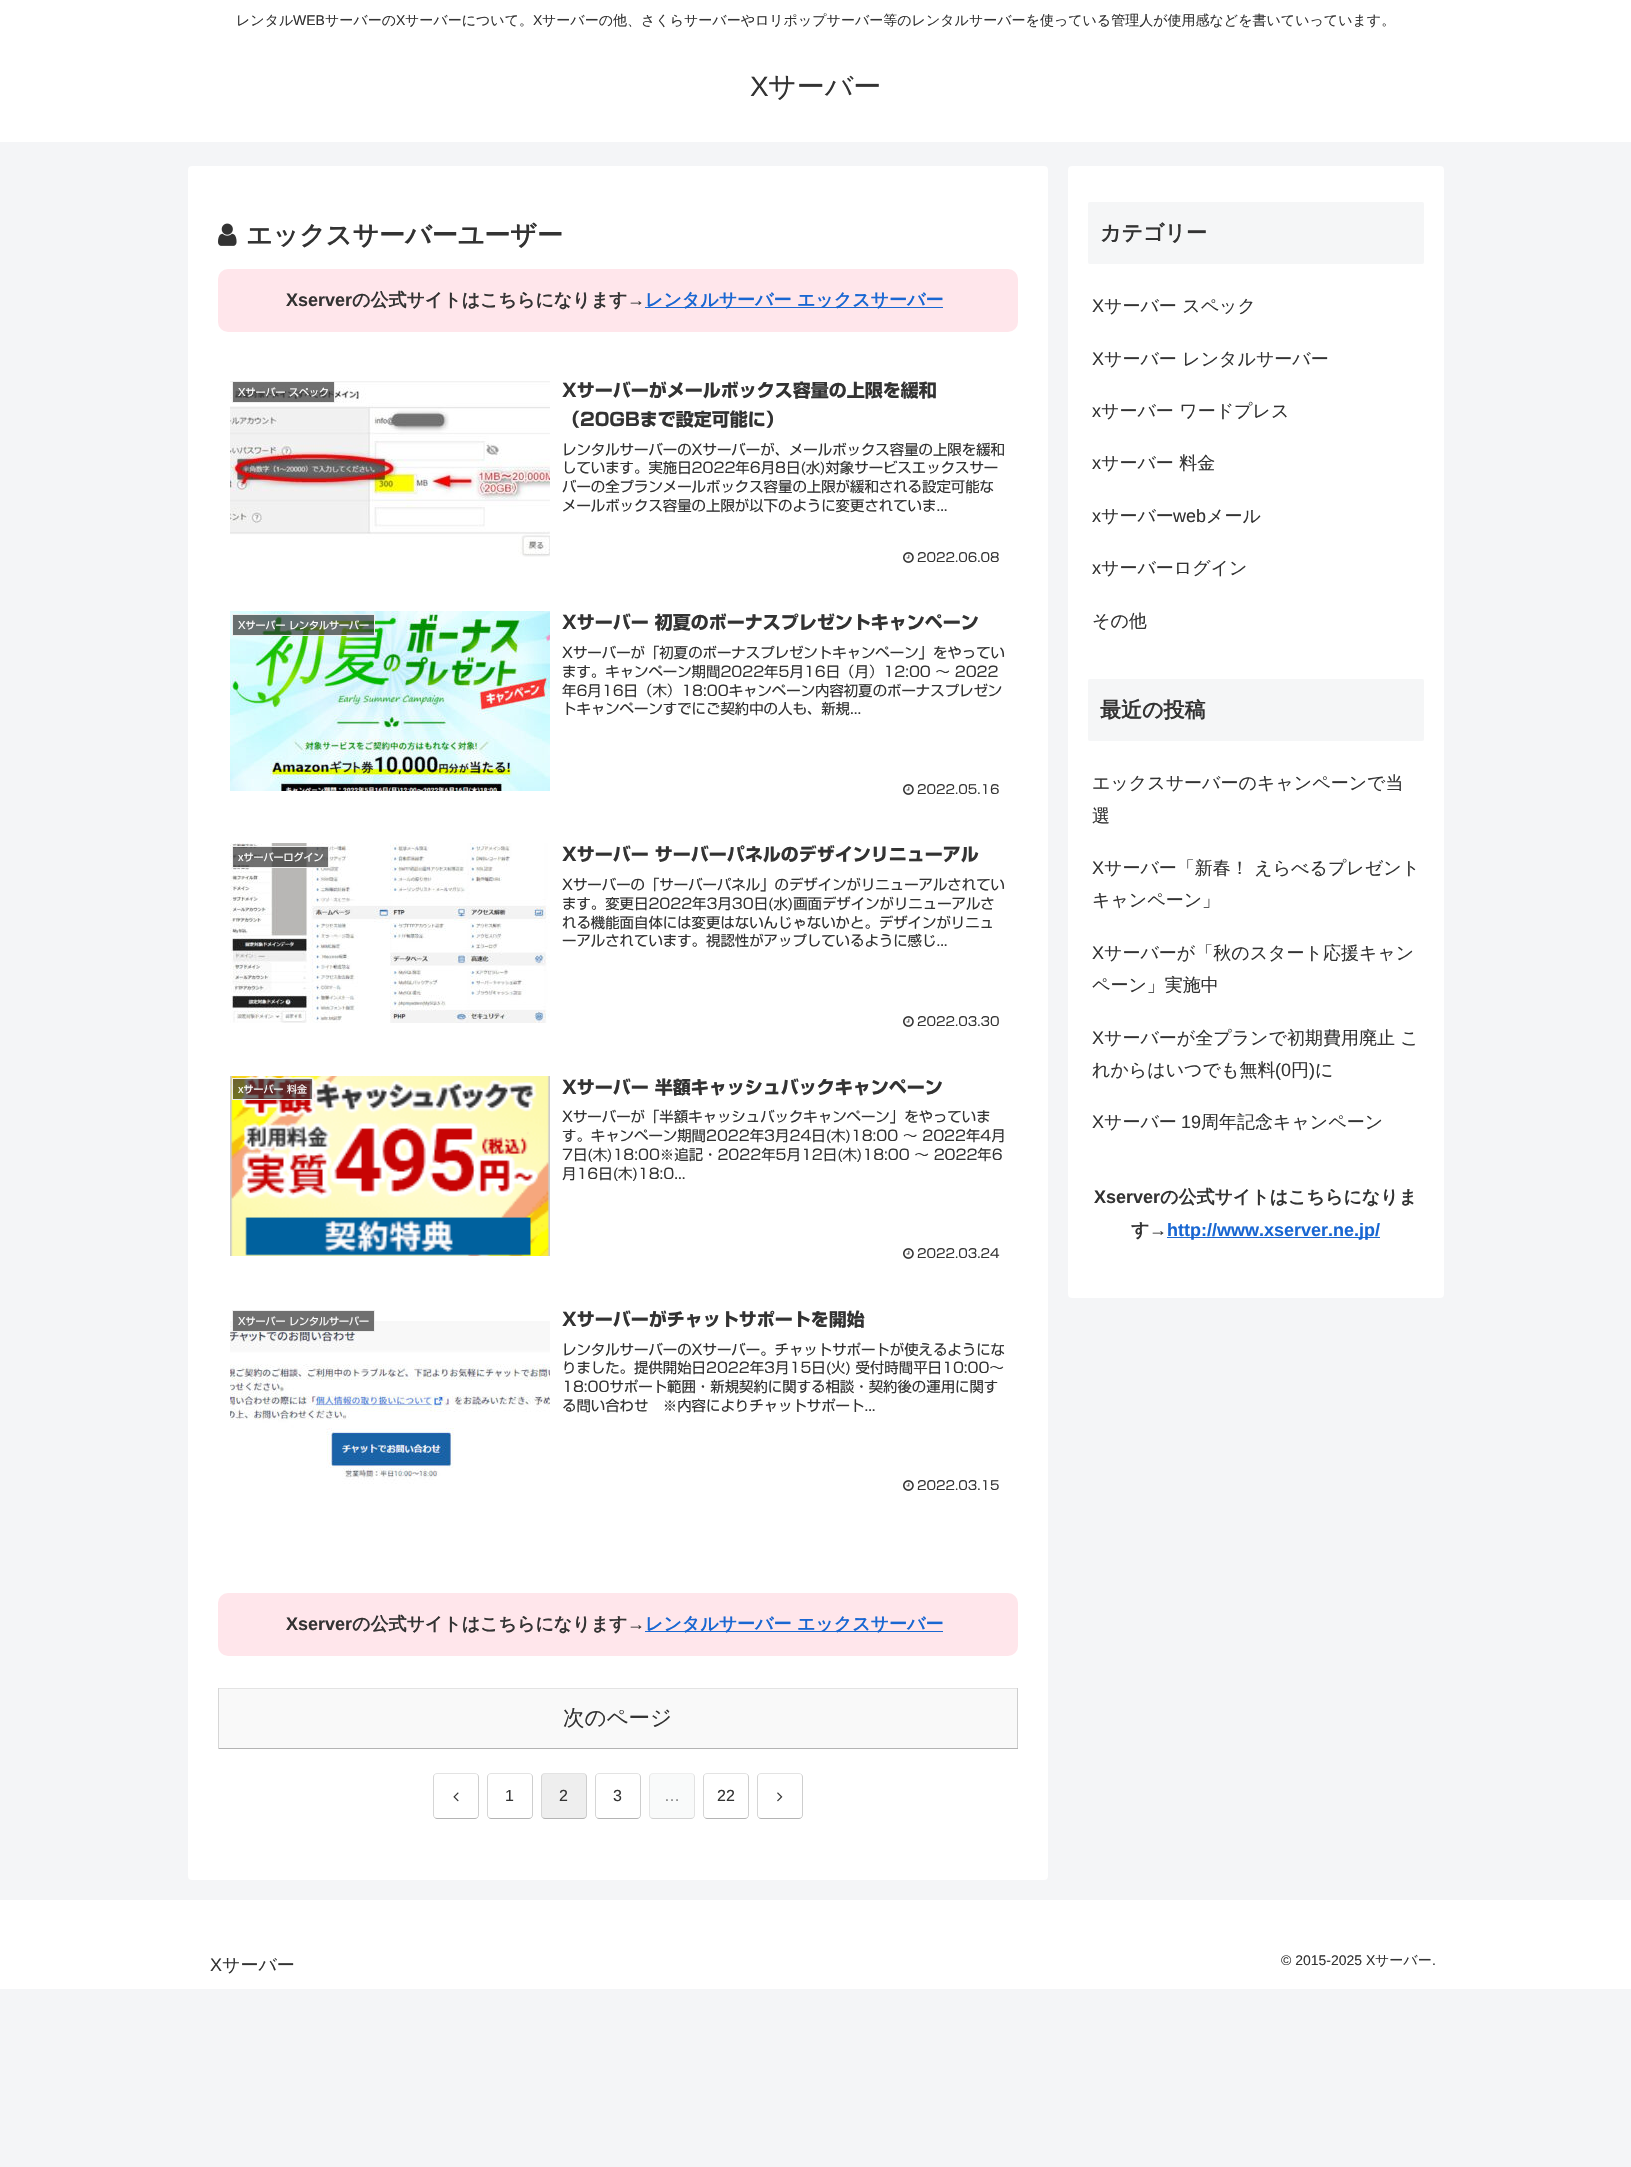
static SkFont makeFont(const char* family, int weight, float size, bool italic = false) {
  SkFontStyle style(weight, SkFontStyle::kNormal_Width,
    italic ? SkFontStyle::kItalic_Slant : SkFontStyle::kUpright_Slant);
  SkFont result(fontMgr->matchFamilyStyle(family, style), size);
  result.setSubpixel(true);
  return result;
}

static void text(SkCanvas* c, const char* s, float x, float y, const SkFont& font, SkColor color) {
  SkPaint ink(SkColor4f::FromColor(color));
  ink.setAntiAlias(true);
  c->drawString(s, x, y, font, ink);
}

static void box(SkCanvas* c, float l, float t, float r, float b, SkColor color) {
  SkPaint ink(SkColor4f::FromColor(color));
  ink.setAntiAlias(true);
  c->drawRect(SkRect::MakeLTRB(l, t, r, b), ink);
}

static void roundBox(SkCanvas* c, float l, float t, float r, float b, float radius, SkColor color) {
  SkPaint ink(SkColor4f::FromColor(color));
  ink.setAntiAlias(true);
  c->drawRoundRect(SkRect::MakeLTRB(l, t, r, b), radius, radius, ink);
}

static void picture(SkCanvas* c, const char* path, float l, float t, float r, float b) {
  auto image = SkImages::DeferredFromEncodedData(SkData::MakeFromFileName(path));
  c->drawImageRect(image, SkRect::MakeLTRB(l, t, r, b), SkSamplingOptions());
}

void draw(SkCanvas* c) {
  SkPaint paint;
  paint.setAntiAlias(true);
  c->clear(0xfff4f5f7);
  box(c, 0, 0, 1631, 142, 0xffffffff);
  SkFont face1 = makeFont("WenQuanYi Zen Hei", 500, 14);
  text(c, "レンタル", 236, 25, face1, 0xff333333);
  SkFont face2 = makeFont("Liberation Sans", 400, 14);
  text(c, "WEB", 293, 25, face2, 0xff333333);
  text(c, "サーバーの", 325, 25, face1, 0xff333333);
  text(c, "X", 396, 25, face2, 0xff333333);
  text(c, "サーバーについて。", 405, 25, face1, 0xff333333);
  text(c, "X", 533, 25, face2, 0xff333333);
  text(c, "サーバーの他、さくらサーバーやロリポップサーバー等のレンタルサーバーを使っている管理人が使用感などを書いていっています。", 542, 25, face1, 0xff333333);
  SkFont face3 = makeFont("Liberation Sans", 400, 28);
  text(c, "X", 750, 96, face3, 0xff333333);
  SkFont face4 = makeFont("WenQuanYi Zen Hei", 500, 28);
  text(c, "サーバー", 768, 96, face4, 0xff333333);
  roundBox(c, 188, 166, 1048, 1880, 4, 0xffffffff);
  picture(c, "img_01.png", 218, 223, 237, 246);
  SkFont face5 = makeFont("WenQuanYi Zen Hei", 700, 26);
  text(c, "エックスサーバーユーザー", 246, 244, face5, 0xff333333);
  roundBox(c, 218, 269, 1018, 332, 10, 0xffffe6eb);
  SkFont face6 = makeFont("Liberation Sans", 700, 18);
  text(c, "Xserver", 286, 306, face6, 0xff333333);
  SkFont face7 = makeFont("WenQuanYi Zen Hei", 700, 18);
  text(c, "の公式サイトはこちらになります", 352, 306, face7, 0xff333333);
  text(c, "→", 627, 306, face6, 0xff333333);
  box(c, 645, 307, 943, 308, 0xff1967d2);
  text(c, "レンタルサーバー エックスサーバー", 645, 306, face7, 0xff1967d2);
  picture(c, "img_02.png", 230, 381, 550, 557);
  paint.setColor(0xb3333333);
  c->drawRect(SkRect::MakeLTRB(232.5f, 381.5f, 334.5f, 402.5f), paint);
  paint.setStyle(SkPaint::kStroke_Style);
  paint.setStrokeWidth(1);
  paint.setColor(0xffeeeeee);
  c->drawRect(SkRect::MakeLTRB(232.5f, 381.5f, 334.5f, 402.5f), paint);
  SkFont face8 = makeFont("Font", 400, 10);
  text(c, "Xサーバー スペック", 238, 396, face8, 0xffffffff);
  SkFont face9 = makeFont("Font", 700, 18);
  text(c, "Xサーバーがメールボックス容量の上限を緩和", 562, 397, face9, 0xff333333);
  text(c, "（20GBまで設定可能に）", 562, 426, face9, 0xff333333);
  SkFont face10 = makeFont("Font", 400, 14.4f);
  text(c, "レンタルサーバーのXサーバーが、メールボックス容量の上限を緩和", 562, 455, face10, 0xff333333);
  text(c, "しています。実施日2022年6月8日(水)対象サービスエックスサー", 562, 473, face10, 0xff333333);
  text(c, "バーの全プランメールボックス容量の上限が緩和される設定可能な", 562, 492, face10, 0xff333333);
  text(c, "メールボックス容量の上限が以下のように変更されていま...", 562, 511, face10, 0xff333333);
  picture(c, "img_03.png", 903, 552, 914, 563);
  SkFont face11 = makeFont("Font", 400, 12.5f);
  text(c, "2022.06.08", 917, 562, face11, 0xff333333);
  picture(c, "img_04.png", 230, 611, 550, 791);
  paint.setStyle(SkPaint::kFill_Style);
  paint.setColor(0xb3333333);
  c->drawRect(SkRect::MakeLTRB(232.5f, 614.5f, 374.5f, 635.5f), paint);
  paint.setStyle(SkPaint::kStroke_Style);
  paint.setColor(0xffeeeeee);
  c->drawRect(SkRect::MakeLTRB(232.5f, 614.5f, 374.5f, 635.5f), paint);
  text(c, "Xサーバー レンタルサーバー", 238, 629, face8, 0xffffffff);
  text(c, "Xサーバー 初夏のボーナスプレゼントキャンペーン", 562, 629, face9, 0xff333333);
  text(c, "Xサーバーが「初夏のボーナスプレゼントキャンペーン」をやってい", 562, 658, face10, 0xff333333);
  text(c, "ます。キャンペーン期間2022年5月16日（月）12:00 ～ 2022", 562, 677, face10, 0xff333333);
  text(c, "年6月16日（木）18:00キャンペーン内容初夏のボーナスプレゼン", 562, 696, face10, 0xff333333);
  text(c, "トキャンペーンすでにご契約中の人も、新規...", 562, 714, face10, 0xff333333);
  picture(c, "img_03.png", 903, 784, 914, 795);
  text(c, "2022.05.16", 917, 794, face11, 0xff333333);
  picture(c, "img_05.png", 230, 843, 550, 1023);
  paint.setStyle(SkPaint::kFill_Style);
  paint.setColor(0xb3333333);
  c->drawRect(SkRect::MakeLTRB(232.5f, 846.5f, 328.5f, 867.5f), paint);
  paint.setStyle(SkPaint::kStroke_Style);
  paint.setColor(0xffeeeeee);
  c->drawRect(SkRect::MakeLTRB(232.5f, 846.5f, 328.5f, 867.5f), paint);
  text(c, "xサーバーログイン", 238, 861, face8, 0xffffffff);
  text(c, "Xサーバー サーバーパネルのデザインリニューアル", 562, 861, face9, 0xff333333);
  text(c, "Xサーバーの「サーバーパネル」のデザインがリニューアルされてい", 562, 890, face10, 0xff333333);
  text(c, "ます。変更日2022年3月30日(水)画面デザインがリニューアルさ", 562, 909, face10, 0xff333333);
  text(c, "れる機能面自体には変更はないんじゃないかと。デザインがリニュ", 562, 928, face10, 0xff333333);
  text(c, "ーアルされています。視認性がアップしているように感じ...", 562, 946, face10, 0xff333333);
  picture(c, "img_03.png", 903, 1016, 914, 1027);
  text(c, "2022.03.30", 917, 1026, face11, 0xff333333);
  picture(c, "img_06.png", 230, 1076, 550, 1256);
  paint.setStyle(SkPaint::kFill_Style);
  paint.setColor(0xb3333333);
  c->drawRect(SkRect::MakeLTRB(232.5f, 1078.5f, 312.5f, 1099.5f), paint);
  paint.setStyle(SkPaint::kStroke_Style);
  paint.setColor(0xffeeeeee);
  c->drawRect(SkRect::MakeLTRB(232.5f, 1078.5f, 312.5f, 1099.5f), paint);
  text(c, "xサーバー 料金", 238, 1093, face8, 0xffffffff);
  text(c, "Xサーバー 半額キャッシュバックキャンペーン", 562, 1094, face9, 0xff333333);
  text(c, "Xサーバーが「半額キャッシュバックキャンペーン」をやっていま", 562, 1122, face10, 0xff333333);
  text(c, "す。キャンペーン期間2022年3月24日(木)18:00 ～ 2022年4月", 562, 1141, face10, 0xff333333);
  text(c, "7日(木)18:00※追記・2022年5月12日(木)18:00 ～ 2022年6", 562, 1160, face10, 0xff333333);
  text(c, "月16日(木)18:0...", 562, 1179, face10, 0xff333333);
  picture(c, "img_03.png", 903, 1248, 914, 1259);
  text(c, "2022.03.24", 917, 1258, face11, 0xff333333);
  picture(c, "img_07.png", 230, 1321, 550, 1484);
  paint.setStyle(SkPaint::kFill_Style);
  paint.setColor(0xb3333333);
  c->drawRect(SkRect::MakeLTRB(232.5f, 1310.5f, 374.5f, 1331.5f), paint);
  paint.setStyle(SkPaint::kStroke_Style);
  paint.setColor(0xffeeeeee);
  c->drawRect(SkRect::MakeLTRB(232.5f, 1310.5f, 374.5f, 1331.5f), paint);
  text(c, "Xサーバー レンタルサーバー", 238, 1325, face8, 0xffffffff);
  text(c, "Xサーバーがチャットサポートを開始", 562, 1326, face9, 0xff333333);
  text(c, "レンタルサーバーのXサーバー。チャットサポートが使えるようにな", 562, 1355, face10, 0xff333333);
  text(c, "りました。提供開始日2022年3月15日(火) 受付時間平日10:00～", 562, 1373, face10, 0xff333333);
  text(c, "18:00サポート範囲・新規契約に関する相談・契約後の運用に関す", 562, 1392, face10, 0xff333333);
  text(c, "る問い合わせ　※内容によりチャットサポート...", 562, 1411, face10, 0xff333333);
  picture(c, "img_03.png", 903, 1480, 914, 1491);
  text(c, "2022.03.15", 917, 1490, face11, 0xff333333);
  roundBox(c, 218, 1593, 1018, 1656, 10, 0xffffe6eb);
  text(c, "Xserver", 286, 1630, face6, 0xff333333);
  text(c, "の公式サイトはこちらになります", 352, 1630, face7, 0xff333333);
  text(c, "→", 627, 1630, face6, 0xff333333);
  box(c, 645, 1631, 943, 1632, 0xff1967d2);
  text(c, "レンタルサーバー エックスサーバー", 645, 1630, face7, 0xff1967d2);
  box(c, 219, 1689, 1017, 1748, 0xfff9f9f9);
  box(c, 218, 1688, 1018, 1689, 0xffe3e3e3);
  box(c, 1017, 1688, 1018, 1749, 0xffcecece);
  box(c, 218, 1748, 1018, 1749, 0xffb4b4b4);
  box(c, 218, 1688, 219, 1749, 0xffd6d6d6);
  SkFont face12 = makeFont("WenQuanYi Zen Hei", 500, 21.5f);
  text(c, "次のページ", 563, 1725, face12, 0xff333333);
  paint.setColor(0xffe3e3e3);
  c->drawPath(SkPathBuilder().moveTo(434.5f, 1774.5f).cubicTo(435, 1774, 436, 1773.5f, 437, 1773.5f).lineTo(475, 1773.5f).cubicTo(476, 1773.5f, 477, 1774, 477.5f, 1774.5f).detach(), paint);
  paint.setColor(0xffcecece);
  c->drawPath(SkPathBuilder().moveTo(477.5f, 1774.5f).cubicTo(478, 1775, 478.5f, 1776, 478.5f, 1777).lineTo(478.5f, 1815).cubicTo(478.5f, 1816, 478, 1817, 477.5f, 1817.5f).detach(), paint);
  paint.setColor(0xffb4b4b4);
  c->drawPath(SkPathBuilder().moveTo(477.5f, 1817.5f).cubicTo(477, 1818, 476, 1818.5f, 475, 1818.5f).lineTo(437, 1818.5f).cubicTo(436, 1818.5f, 435, 1818, 434.5f, 1817.5f).detach(), paint);
  paint.setColor(0xffd6d6d6);
  c->drawPath(SkPathBuilder().moveTo(434.5f, 1817.5f).cubicTo(434, 1817, 433.5f, 1816, 433.5f, 1815).lineTo(433.5f, 1777).cubicTo(433.5f, 1776, 434, 1775, 434.5f, 1774.5f).detach(), paint);
  picture(c, "img_08.png", 453, 1792, 459, 1802);
  paint.setColor(0xffe3e3e3);
  c->drawPath(SkPathBuilder().moveTo(488.5f, 1774.5f).cubicTo(489, 1774, 490, 1773.5f, 491, 1773.5f).lineTo(529, 1773.5f).cubicTo(530, 1773.5f, 531, 1774, 531.5f, 1774.5f).detach(), paint);
  paint.setColor(0xffcecece);
  c->drawPath(SkPathBuilder().moveTo(531.5f, 1774.5f).cubicTo(532, 1775, 532.5f, 1776, 532.5f, 1777).lineTo(532.5f, 1815).cubicTo(532.5f, 1816, 532, 1817, 531.5f, 1817.5f).detach(), paint);
  paint.setColor(0xffb4b4b4);
  c->drawPath(SkPathBuilder().moveTo(531.5f, 1817.5f).cubicTo(531, 1818, 530, 1818.5f, 529, 1818.5f).lineTo(491, 1818.5f).cubicTo(490, 1818.5f, 489, 1818, 488.5f, 1817.5f).detach(), paint);
  paint.setColor(0xffd6d6d6);
  c->drawPath(SkPathBuilder().moveTo(488.5f, 1817.5f).cubicTo(488, 1817, 487.5f, 1816, 487.5f, 1815).lineTo(487.5f, 1777).cubicTo(487.5f, 1776, 488, 1775, 488.5f, 1774.5f).detach(), paint);
  SkFont face13 = makeFont("Liberation Sans", 400, 16);
  text(c, "1", 505, 1801, face13, 0xff333333);
  roundBox(c, 541, 1773, 587, 1819, 4, 0xffeeeeee);
  paint.setColor(0xffe3e3e3);
  c->drawPath(SkPathBuilder().moveTo(542.5f, 1774.5f).cubicTo(543, 1774, 544, 1773.5f, 545, 1773.5f).lineTo(583, 1773.5f).cubicTo(584, 1773.5f, 585, 1774, 585.5f, 1774.5f).detach(), paint);
  paint.setColor(0xffcecece);
  c->drawPath(SkPathBuilder().moveTo(585.5f, 1774.5f).cubicTo(586, 1775, 586.5f, 1776, 586.5f, 1777).lineTo(586.5f, 1815).cubicTo(586.5f, 1816, 586, 1817, 585.5f, 1817.5f).detach(), paint);
  paint.setColor(0xffb4b4b4);
  c->drawPath(SkPathBuilder().moveTo(585.5f, 1817.5f).cubicTo(585, 1818, 584, 1818.5f, 583, 1818.5f).lineTo(545, 1818.5f).cubicTo(544, 1818.5f, 543, 1818, 542.5f, 1817.5f).detach(), paint);
  paint.setColor(0xffd6d6d6);
  c->drawPath(SkPathBuilder().moveTo(542.5f, 1817.5f).cubicTo(542, 1817, 541.5f, 1816, 541.5f, 1815).lineTo(541.5f, 1777).cubicTo(541.5f, 1776, 542, 1775, 542.5f, 1774.5f).detach(), paint);
  text(c, "2", 559, 1801, face13, 0xff333333);
  paint.setColor(0xffe3e3e3);
  c->drawPath(SkPathBuilder().moveTo(596.5f, 1774.5f).cubicTo(597, 1774, 598, 1773.5f, 599, 1773.5f).lineTo(637, 1773.5f).cubicTo(638, 1773.5f, 639, 1774, 639.5f, 1774.5f).detach(), paint);
  paint.setColor(0xffcecece);
  c->drawPath(SkPathBuilder().moveTo(639.5f, 1774.5f).cubicTo(640, 1775, 640.5f, 1776, 640.5f, 1777).lineTo(640.5f, 1815).cubicTo(640.5f, 1816, 640, 1817, 639.5f, 1817.5f).detach(), paint);
  paint.setColor(0xffb4b4b4);
  c->drawPath(SkPathBuilder().moveTo(639.5f, 1817.5f).cubicTo(639, 1818, 638, 1818.5f, 637, 1818.5f).lineTo(599, 1818.5f).cubicTo(598, 1818.5f, 597, 1818, 596.5f, 1817.5f).detach(), paint);
  paint.setColor(0xffd6d6d6);
  c->drawPath(SkPathBuilder().moveTo(596.5f, 1817.5f).cubicTo(596, 1817, 595.5f, 1816, 595.5f, 1815).lineTo(595.5f, 1777).cubicTo(595.5f, 1776, 596, 1775, 596.5f, 1774.5f).detach(), paint);
  text(c, "3", 613, 1801, face13, 0xff333333);
  roundBox(c, 649, 1773, 695, 1819, 4, 0xfff9fafa);
  paint.setColor(0xffeeeeee);
  c->drawPath(SkPathBuilder().moveTo(650.5f, 1774.5f).cubicTo(651, 1774, 652, 1773.5f, 653, 1773.5f).lineTo(691, 1773.5f).cubicTo(692, 1773.5f, 693, 1774, 693.5f, 1774.5f).detach(), paint);
  paint.setColor(0xffe2e2e2);
  c->drawPath(SkPathBuilder().moveTo(693.5f, 1774.5f).cubicTo(694, 1775, 694.5f, 1776, 694.5f, 1777).lineTo(694.5f, 1815).cubicTo(694.5f, 1816, 694, 1817, 693.5f, 1817.5f).detach(), paint);
  paint.setColor(0xffd2d2d2);
  c->drawPath(SkPathBuilder().moveTo(693.5f, 1817.5f).cubicTo(693, 1818, 692, 1818.5f, 691, 1818.5f).lineTo(653, 1818.5f).cubicTo(652, 1818.5f, 651, 1818, 650.5f, 1817.5f).detach(), paint);
  paint.setColor(0xffe6e6e6);
  c->drawPath(SkPathBuilder().moveTo(650.5f, 1817.5f).cubicTo(650, 1817, 649.5f, 1816, 649.5f, 1815).lineTo(649.5f, 1777).cubicTo(649.5f, 1776, 650, 1775, 650.5f, 1774.5f).detach(), paint);
  text(c, "…", 664, 1801, face13, 0xff858585);
  paint.setColor(0xffe3e3e3);
  c->drawPath(SkPathBuilder().moveTo(704.5f, 1774.5f).cubicTo(705, 1774, 706, 1773.5f, 707, 1773.5f).lineTo(745, 1773.5f).cubicTo(746, 1773.5f, 747, 1774, 747.5f, 1774.5f).detach(), paint);
  paint.setColor(0xffcecece);
  c->drawPath(SkPathBuilder().moveTo(747.5f, 1774.5f).cubicTo(748, 1775, 748.5f, 1776, 748.5f, 1777).lineTo(748.5f, 1815).cubicTo(748.5f, 1816, 748, 1817, 747.5f, 1817.5f).detach(), paint);
  paint.setColor(0xffb4b4b4);
  c->drawPath(SkPathBuilder().moveTo(747.5f, 1817.5f).cubicTo(747, 1818, 746, 1818.5f, 745, 1818.5f).lineTo(707, 1818.5f).cubicTo(706, 1818.5f, 705, 1818, 704.5f, 1817.5f).detach(), paint);
  paint.setColor(0xffd6d6d6);
  c->drawPath(SkPathBuilder().moveTo(704.5f, 1817.5f).cubicTo(704, 1817, 703.5f, 1816, 703.5f, 1815).lineTo(703.5f, 1777).cubicTo(703.5f, 1776, 704, 1775, 704.5f, 1774.5f).detach(), paint);
  text(c, "22", 717, 1801, face13, 0xff333333);
  paint.setColor(0xffe3e3e3);
  c->drawPath(SkPathBuilder().moveTo(758.5f, 1774.5f).cubicTo(759, 1774, 760, 1773.5f, 761, 1773.5f).lineTo(799, 1773.5f).cubicTo(800, 1773.5f, 801, 1774, 801.5f, 1774.5f).detach(), paint);
  paint.setColor(0xffcecece);
  c->drawPath(SkPathBuilder().moveTo(801.5f, 1774.5f).cubicTo(802, 1775, 802.5f, 1776, 802.5f, 1777).lineTo(802.5f, 1815).cubicTo(802.5f, 1816, 802, 1817, 801.5f, 1817.5f).detach(), paint);
  paint.setColor(0xffb4b4b4);
  c->drawPath(SkPathBuilder().moveTo(801.5f, 1817.5f).cubicTo(801, 1818, 800, 1818.5f, 799, 1818.5f).lineTo(761, 1818.5f).cubicTo(760, 1818.5f, 759, 1818, 758.5f, 1817.5f).detach(), paint);
  paint.setColor(0xffd6d6d6);
  c->drawPath(SkPathBuilder().moveTo(758.5f, 1817.5f).cubicTo(758, 1817, 757.5f, 1816, 757.5f, 1815).lineTo(757.5f, 1777).cubicTo(757.5f, 1776, 758, 1775, 758.5f, 1774.5f).detach(), paint);
  picture(c, "img_09.png", 777, 1792, 783, 1802);
  roundBox(c, 1068, 166, 1444, 1298, 4, 0xffffffff);
  roundBox(c, 1088, 202, 1424, 264, 2, 0xfff5f6f7);
  SkFont face14 = makeFont("WenQuanYi Zen Hei", 700, 21);
  text(c, "カテゴリー", 1100, 240, face14, 0xff333333);
  SkFont face15 = makeFont("Liberation Sans", 400, 18);
  text(c, "X", 1092, 312, face15, 0xff333333);
  SkFont face16 = makeFont("WenQuanYi Zen Hei", 500, 18);
  text(c, "サーバー スペック", 1104, 312, face16, 0xff333333);
  text(c, "X", 1092, 365, face15, 0xff333333);
  text(c, "サーバー レンタルサーバー", 1104, 365, face16, 0xff333333);
  text(c, "x", 1092, 417, face15, 0xff333333);
  text(c, "サーバー ワードプレス", 1101, 417, face16, 0xff333333);
  text(c, "x", 1092, 469, face15, 0xff333333);
  text(c, "サーバー 料金", 1101, 469, face16, 0xff333333);
  text(c, "x", 1092, 522, face15, 0xff333333);
  text(c, "サーバー", 1101, 522, face16, 0xff333333);
  text(c, "web", 1173, 522, face15, 0xff333333);
  text(c, "メール", 1206, 522, face16, 0xff333333);
  text(c, "x", 1092, 574, face15, 0xff333333);
  text(c, "サーバーログイン", 1101, 574, face16, 0xff333333);
  text(c, "その他", 1092, 627, face16, 0xff333333);
  roundBox(c, 1088, 679, 1424, 741, 2, 0xfff5f6f7);
  text(c, "最近の投稿", 1100, 717, face14, 0xff333333);
  text(c, "エックスサーバーのキャンペーンで当", 1092, 789, face16, 0xff333333);
  text(c, "選", 1092, 822, face16, 0xff333333);
  text(c, "X", 1092, 874, face15, 0xff333333);
  text(c, "サーバー「新春！ えらべるプレゼント", 1104, 874, face16, 0xff333333);
  text(c, "キャンペーン」", 1092, 906, face16, 0xff333333);
  text(c, "X", 1092, 959, face15, 0xff333333);
  text(c, "サーバーが「秋のスタート応援キャン", 1104, 959, face16, 0xff333333);
  text(c, "ペーン」実施中", 1092, 991, face16, 0xff333333);
  text(c, "X", 1092, 1044, face15, 0xff333333);
  text(c, "サーバーが全プランで初期費用廃止 こ", 1104, 1044, face16, 0xff333333);
  text(c, "れからはいつでも無料", 1092, 1076, face16, 0xff333333);
  text(c, "(0", 1275, 1076, face15, 0xff333333);
  text(c, "円", 1291, 1076, face16, 0xff333333);
  text(c, ")", 1309, 1076, face15, 0xff333333);
  text(c, "に", 1315, 1076, face16, 0xff333333);
  text(c, "X", 1092, 1128, face15, 0xff333333);
  text(c, "サーバー", 1104, 1128, face16, 0xff333333);
  text(c, "19", 1181, 1128, face15, 0xff333333);
  text(c, "周年記念キャンペーン", 1201, 1128, face16, 0xff333333);
  text(c, "Xserver", 1094, 1203, face6, 0xff333333);
  text(c, "の公式サイトはこちらになりま", 1160, 1203, face7, 0xff333333);
  text(c, "す", 1131, 1236, face7, 0xff333333);
  text(c, "→", 1149, 1236, face6, 0xff333333);
  box(c, 1167, 1237, 1380, 1238, 0xff1967d2);
  text(c, "http://www.xserver.ne.jp/", 1167, 1236, face6, 0xff1967d2);
  box(c, 0, 1900, 1631, 1989, 0xffffffff);
  text(c, "X", 210, 1971, face15, 0xff333333);
  text(c, "サーバー", 222, 1971, face16, 0xff333333);
  text(c, "© 2015-2025 X", 1281, 1965, face2, 0xff333333);
  text(c, "サーバー", 1375, 1965, face1, 0xff333333);
  text(c, ".", 1432, 1965, face2, 0xff333333);
}
